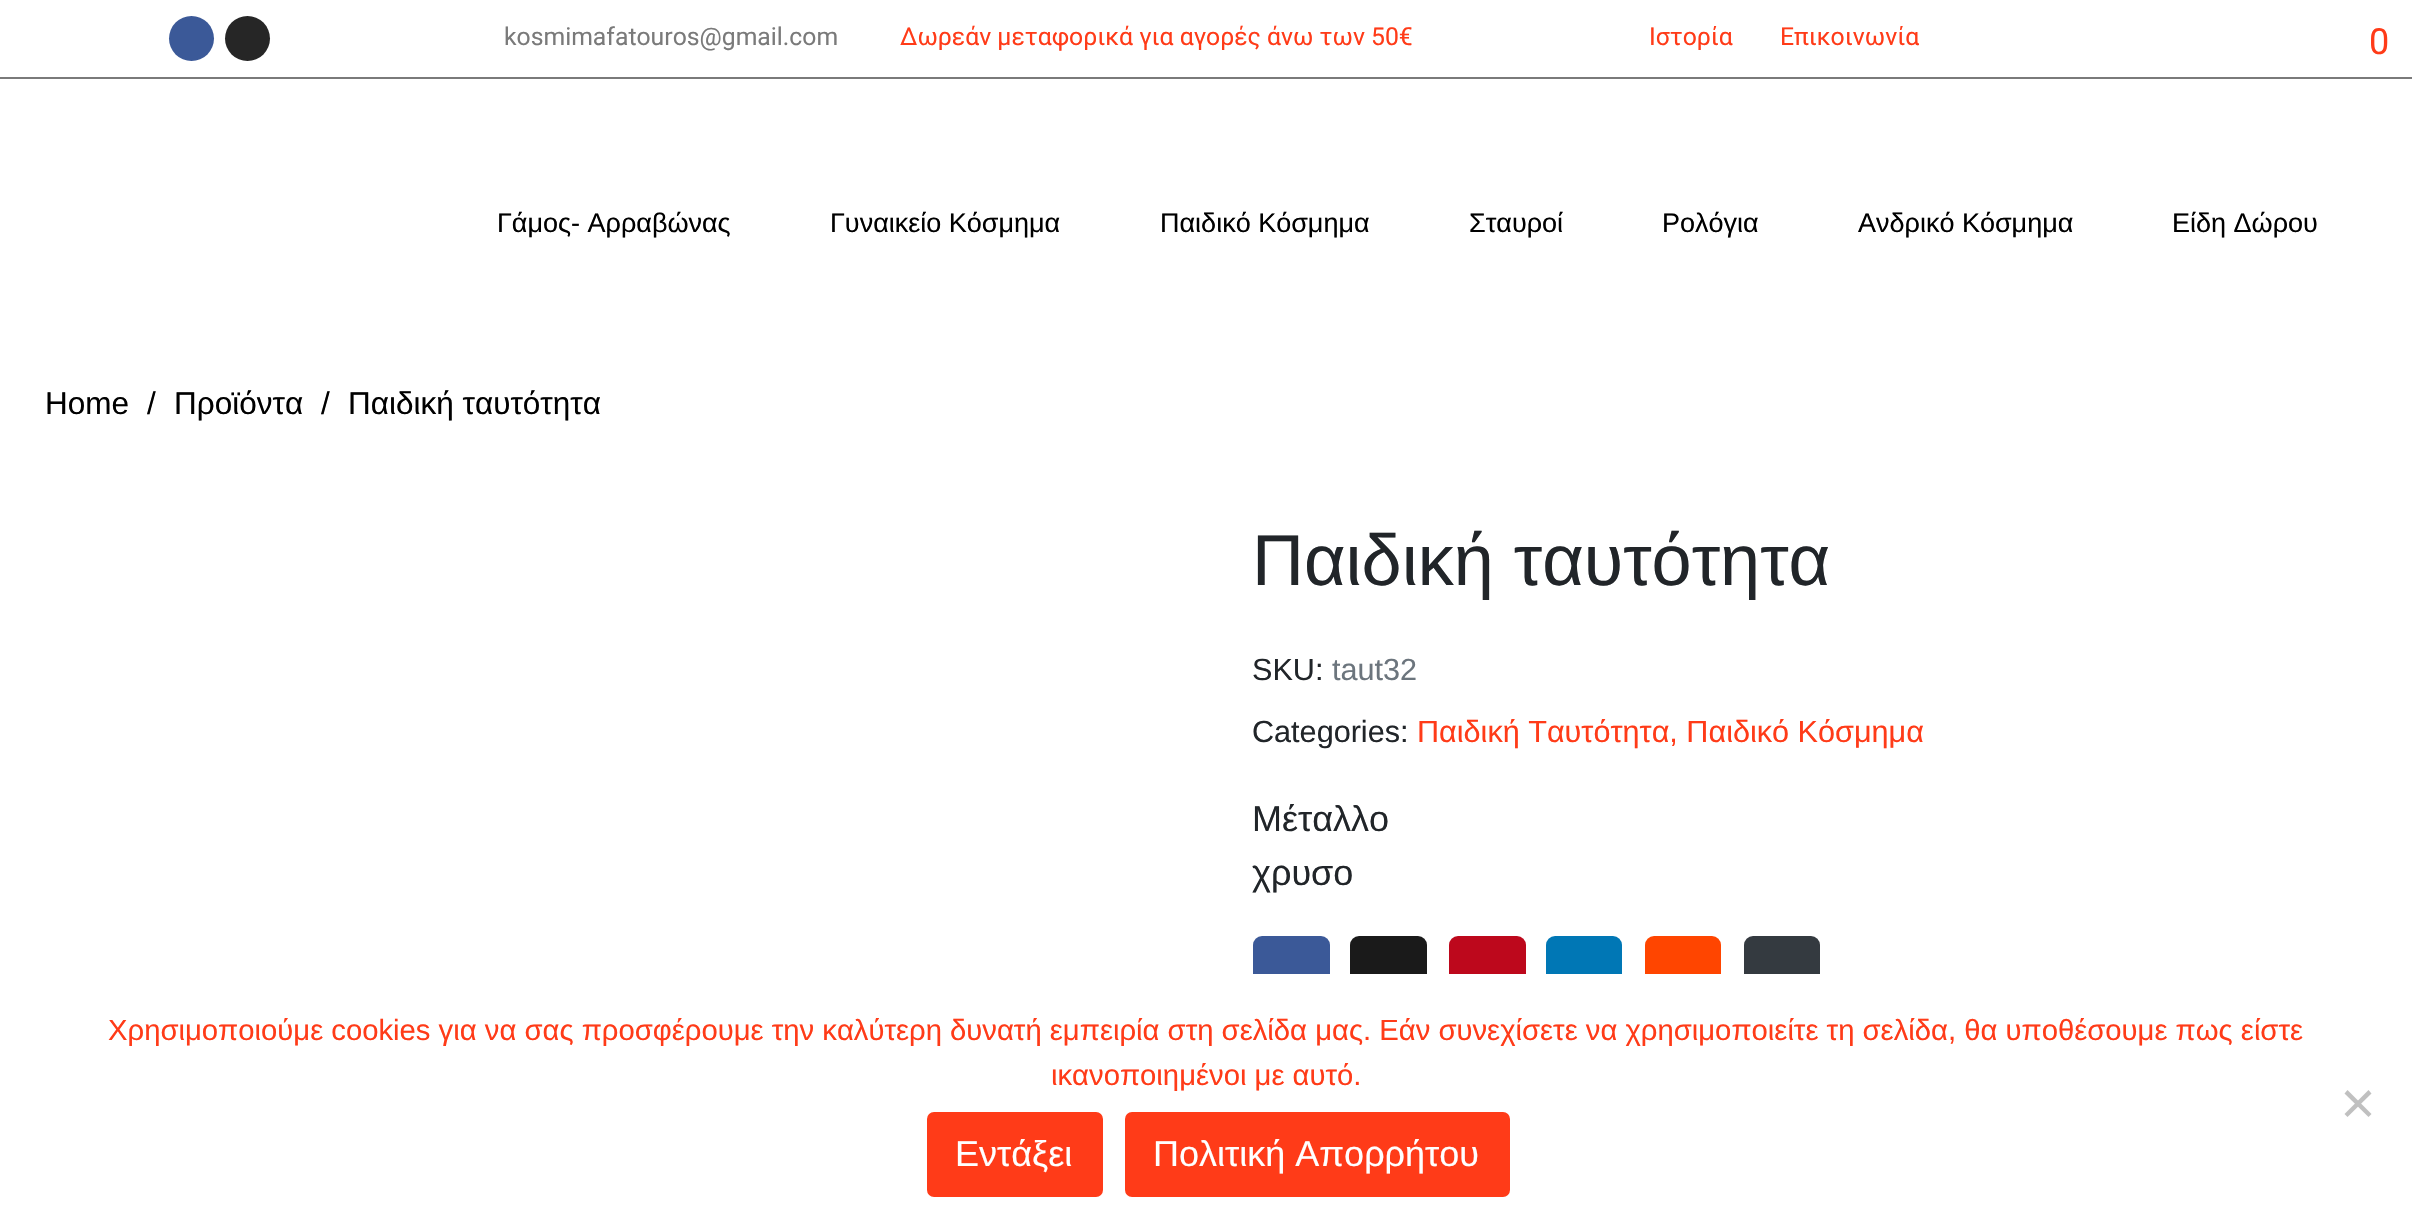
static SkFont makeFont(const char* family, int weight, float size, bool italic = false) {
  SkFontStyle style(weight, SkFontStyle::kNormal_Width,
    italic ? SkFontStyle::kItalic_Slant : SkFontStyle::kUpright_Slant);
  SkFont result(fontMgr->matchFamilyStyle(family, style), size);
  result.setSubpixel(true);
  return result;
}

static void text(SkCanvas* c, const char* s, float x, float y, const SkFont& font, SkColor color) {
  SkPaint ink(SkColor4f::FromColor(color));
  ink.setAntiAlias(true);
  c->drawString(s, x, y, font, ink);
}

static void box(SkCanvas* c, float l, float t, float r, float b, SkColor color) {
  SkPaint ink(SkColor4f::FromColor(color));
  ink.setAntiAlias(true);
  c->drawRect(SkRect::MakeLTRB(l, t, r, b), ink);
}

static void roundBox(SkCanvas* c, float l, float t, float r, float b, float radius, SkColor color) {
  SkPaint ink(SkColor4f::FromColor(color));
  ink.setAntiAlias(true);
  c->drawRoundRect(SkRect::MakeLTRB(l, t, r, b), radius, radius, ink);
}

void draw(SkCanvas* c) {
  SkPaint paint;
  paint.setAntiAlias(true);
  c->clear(0xffffffff);
  box(c, 0, 77, 2412, 79, 0xff7a7a7a);
  paint.setColor(0xff3b5998);
  c->drawCircle(191.5f, 38.5f, 22.5f, paint);
  paint.setColor(0xff262626);
  c->drawCircle(247.5f, 38.5f, 22.5f, paint);
  SkFont face1 = makeFont("Roboto", 400, 24.75f);
  text(c, "kosmimafatouros@gmail.com", 504, 45, face1, 0xff7a7a7a);
  text(c, "Δωρεάν μεταφορικά για αγορές άνω των 50€", 900, 45, face1, 0xffff3b18);
  text(c, "Ιστορία", 1649, 45, face1, 0xffff3b18);
  text(c, "Επικοινωνία", 1780, 45, face1, 0xffff3b18);
  SkFont face2 = makeFont("Roboto", 400, 36);
  text(c, "0", 2369, 54, face2, 0xffff3b18);
  SkFont face3 = makeFont("Liberation Sans", 400, 27);
  text(c, "Γάμος- Αρραβώνας", 497, 232, face3, 0xff000000);
  text(c, "Γυναικείο Κόσμημα", 830, 232, face3, 0xff000000);
  text(c, "Παιδικό Κόσμημα", 1160, 232, face3, 0xff000000);
  text(c, "Σταυροί", 1469, 232, face3, 0xff000000);
  text(c, "Ρολόγια", 1662, 232, face3, 0xff000000);
  text(c, "Ανδρικό Κόσμημα", 1858, 232, face3, 0xff000000);
  text(c, "Είδη Δώρου", 2172, 232, face3, 0xff000000);
  SkFont face4 = makeFont("Liberation Sans", 400, 31.5f);
  text(c, "Home", 45, 414, face4, 0xff000000);
  text(c, "/", 147, 414, face4, 0xff000000);
  text(c, "Προϊόντα", 174, 414, face4, 0xff000000);
  text(c, "/", 321, 414, face4, 0xff000000);
  text(c, "Παιδική ταυτότητα", 348, 414, face4, 0xff000000);
  SkFont face5 = makeFont("Liberation Sans", 400, 72);
  text(c, "Παιδική ταυτότητα", 1252, 585, face5, 0xff212529);
  SkFont face6 = makeFont("Liberation Sans", 400, 30.6f);
  text(c, "SKU:", 1252, 680, face6, 0xff212529);
  text(c, "taut32", 1332, 680, face6, 0xff6c757d);
  text(c, "Categories:", 1252, 742, face6, 0xff212529);
  text(c, "Παιδική Ταυτότητα, Παιδικό Κόσμημα", 1417, 742, face6, 0xffff3b18);
  SkFont face7 = makeFont("Liberation Sans", 400, 36);
  text(c, "Μέταλλο", 1252, 831, face7, 0xff212529);
  text(c, "χρυσο", 1252, 885, face7, 0xff212529);
  roundBox(c, 1253, 936, 1330, 1013, 9, 0xff3b5998);
  roundBox(c, 1350, 936, 1427, 1013, 9, 0xff1a1a1a);
  roundBox(c, 1449, 936, 1526, 1013, 9, 0xffbd081c);
  roundBox(c, 1546, 936, 1622, 1013, 9, 0xff0077b5);
  roundBox(c, 1645, 936, 1721, 1013, 9, 0xffff4500);
  roundBox(c, 1744, 936, 1820, 1013, 9, 0xff343a40);
  box(c, 1253, 974, 1820, 1013, 0xffffffff);
  SkFont face8 = makeFont("Liberation Sans", 400, 29.25f);
  text(c, "Χρησιμοποιούμε cookies για να σας προσφέρουμε την καλύτερη δυνατή εμπειρία στη σελίδα μας. Εάν συνεχίσετε να χρησιμοποιείτε τη σελίδα, θα υποθέσουμε πως είστε", 108, 1040, face8, 0xffff3b18);
  text(c, "ικανοποιημένοι με αυτό.", 1051, 1085, face8, 0xffff3b18);
  paint.setColor(0xffc0c0c0);
  c->drawPath(SkPathBuilder().moveTo(2368.5f, 1090).lineTo(2371.5f, 1093.5f).lineTo(2347.5f, 1117).lineTo(2344.5f, 1114).close().detach(), paint);
  c->drawPath(SkPathBuilder().moveTo(2344.5f, 1093.5f).lineTo(2347.5f, 1090).lineTo(2371.5f, 1114).lineTo(2368.5f, 1117).close().detach(), paint);
  paint.setColor(0xffff3b18);
  c->drawRoundRect(SkRect::MakeLTRB(928, 1113, 1102, 1196), 6, 6, paint);
  paint.setStyle(SkPaint::kStroke_Style);
  paint.setStrokeWidth(2);
  c->drawRoundRect(SkRect::MakeLTRB(928, 1113, 1102, 1196), 6, 6, paint);
  text(c, "Εντάξει", 955, 1166, face7, 0xffffffff);
  paint.setStyle(SkPaint::kFill_Style);
  c->drawRoundRect(SkRect::MakeLTRB(1126, 1113, 1509, 1196), 6, 6, paint);
  paint.setStyle(SkPaint::kStroke_Style);
  c->drawRoundRect(SkRect::MakeLTRB(1126, 1113, 1509, 1196), 6, 6, paint);
  text(c, "Πολιτική Απορρήτου", 1153, 1166, face7, 0xffffffff);
}
